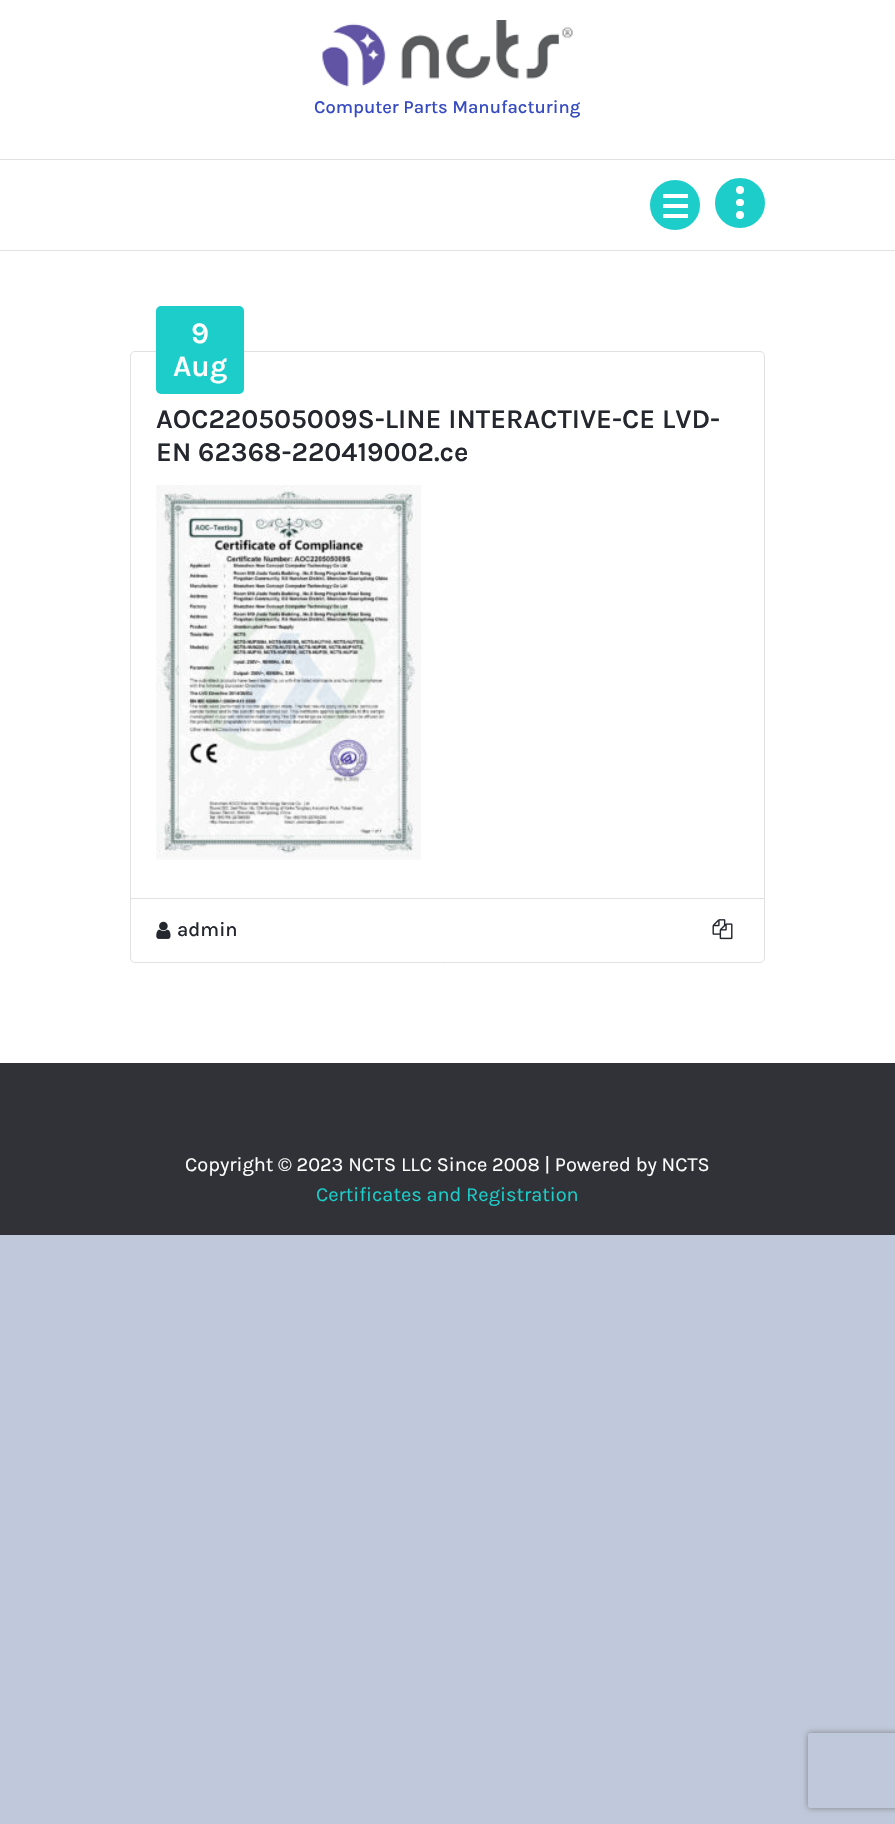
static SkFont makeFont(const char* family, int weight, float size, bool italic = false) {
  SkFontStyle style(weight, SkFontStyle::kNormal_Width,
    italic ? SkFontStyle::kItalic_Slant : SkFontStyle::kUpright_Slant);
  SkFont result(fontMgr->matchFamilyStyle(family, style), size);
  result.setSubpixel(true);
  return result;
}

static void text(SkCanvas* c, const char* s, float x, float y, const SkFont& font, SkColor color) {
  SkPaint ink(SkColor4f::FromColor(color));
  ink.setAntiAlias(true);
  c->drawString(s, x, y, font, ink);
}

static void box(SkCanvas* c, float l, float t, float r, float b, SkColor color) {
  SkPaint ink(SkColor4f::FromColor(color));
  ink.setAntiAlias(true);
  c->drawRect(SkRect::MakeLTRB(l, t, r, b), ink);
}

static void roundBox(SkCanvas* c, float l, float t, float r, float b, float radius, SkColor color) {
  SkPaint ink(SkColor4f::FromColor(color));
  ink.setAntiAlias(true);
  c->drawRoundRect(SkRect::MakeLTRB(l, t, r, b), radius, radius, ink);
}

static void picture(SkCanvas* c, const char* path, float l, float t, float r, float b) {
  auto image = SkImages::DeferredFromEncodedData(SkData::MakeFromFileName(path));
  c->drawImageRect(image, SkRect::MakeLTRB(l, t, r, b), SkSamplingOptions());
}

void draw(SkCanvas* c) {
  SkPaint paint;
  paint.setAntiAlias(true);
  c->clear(0xffc0c9db);
  box(c, 0, 0, 895, 1063, 0xffffffff);
  picture(c, "img_01.png", 322, 20, 573, 87);
  SkFont face1 = makeFont("Karla", 500, 18.4f);
  text(c, "Computer Parts Manufacturing", 314, 113, face1, 0xff364bc1);
  box(c, 0, 159, 895, 160, 0xffe1e1e1);
  box(c, 0, 250, 895, 251, 0xffe1e1e1);
  paint.setColor(0xff1ccdca);
  c->drawCircle(675, 205, 23.5f, paint);
  paint.setStyle(SkPaint::kStroke_Style);
  paint.setStrokeWidth(3);
  c->drawCircle(675, 205, 23.5f, paint);
  box(c, 663, 194, 688, 198, 0xffffffff);
  box(c, 663, 204, 688, 208, 0xffffffff);
  box(c, 663, 214, 688, 218, 0xffffffff);
  paint.setStyle(SkPaint::kFill_Style);
  c->drawCircle(740, 203, 23.5f, paint);
  paint.setStyle(SkPaint::kStroke_Style);
  c->drawCircle(740, 203, 23.5f, paint);
  roundBox(c, 736, 199, 744, 206, 3.5f, 0xffffffff);
  paint.setStyle(SkPaint::kFill_Style);
  paint.setColor(0xffffffff);
  c->drawCircle(740, 190, 4, paint);
  c->drawCircle(740, 215, 4, paint);
  paint.setStyle(SkPaint::kStroke_Style);
  paint.setStrokeWidth(1);
  paint.setColor(0xffe1e1e1);
  c->drawRoundRect(SkRect::MakeLTRB(130.5f, 351.5f, 764.5f, 962.5f), 4.5f, 4.5f, paint);
  roundBox(c, 156, 306, 244, 394, 5, 0xff1ccdca);
  SkFont face2 = makeFont("Karla", 600, 30);
  text(c, "9", 191, 343, face2, 0xffffffff);
  text(c, "Aug", 173, 376, face2, 0xffffffff);
  SkFont face3 = makeFont("Karla", 600, 27.4f);
  text(c, "AOC220505009S-LINE INTERACTIVE-CE LVD-", 156, 428, face3, 0xff24272e);
  text(c, "EN 62368-220419002.ce", 156, 461, face3, 0xff24272e);
  picture(c, "img_02.png", 156, 485, 421, 860);
  box(c, 131, 898, 764, 899, 0xffe1e1e1);
  picture(c, "img_03.png", 156, 921, 171, 939);
  SkFont face4 = makeFont("Karla", 500, 20);
  text(c, "admin", 177, 936, face4, 0xff24272e);
  picture(c, "img_04.png", 712, 919, 733, 940);
  box(c, 0, 1063, 895, 1235, 0xff303237);
  SkFont face5 = makeFont("Karla", 400, 20);
  text(c, "Copyright © 2023 NCTS LLC Since 2008 | Powered by NCTS", 185, 1171, face5, 0xffffffff);
  text(c, "Certificates and Registration", 316, 1201, face5, 0xff1ccdca);
  c->save();
  c->clipPath(SkPathBuilder(SkPathFillType::kEvenOdd).moveTo(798, 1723).lineTo(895, 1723).lineTo(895, 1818).lineTo(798, 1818).close().moveTo(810.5f, 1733).lineTo(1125.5f, 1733).cubicTo(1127, 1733, 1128, 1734, 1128, 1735.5f).lineTo(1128, 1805.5f).cubicTo(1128, 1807, 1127, 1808, 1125.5f, 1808).lineTo(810.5f, 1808).cubicTo(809, 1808, 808, 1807, 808, 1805.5f).lineTo(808, 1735.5f).cubicTo(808, 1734, 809, 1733, 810.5f, 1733).close().detach(), true);
  paint.setStyle(SkPaint::kFill_Style);
  paint.setColor(0xff808080);
  paint.setMaskFilter(SkMaskFilter::MakeBlur(kNormal_SkBlurStyle, 3));
  c->drawRoundRect(SkRect::MakeLTRB(808, 1733, 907, 1808), 2.5f, 2.5f, paint);
  paint.setMaskFilter(nullptr);
  c->restore();
}
